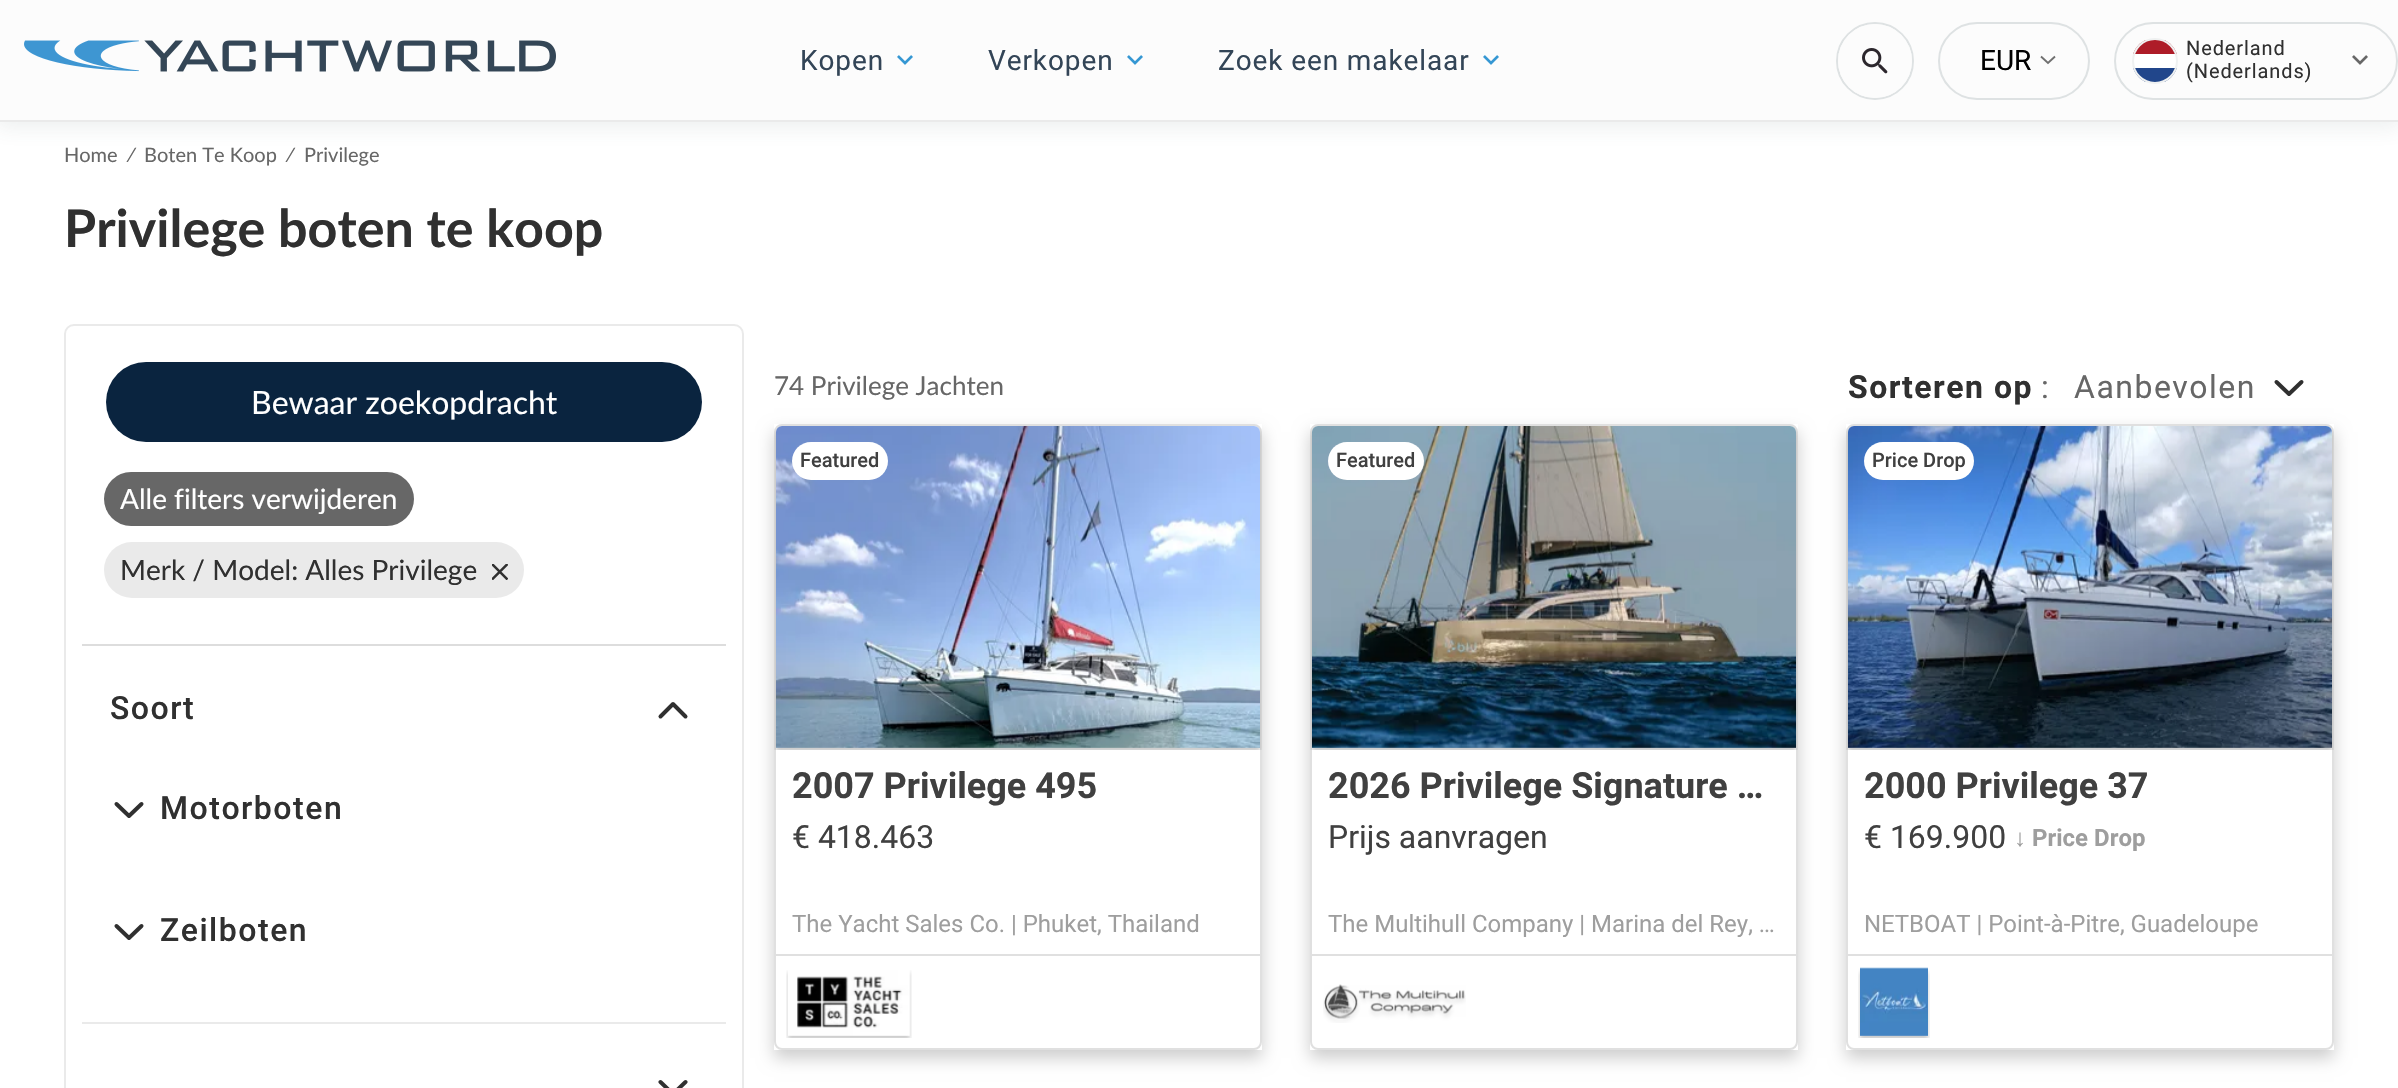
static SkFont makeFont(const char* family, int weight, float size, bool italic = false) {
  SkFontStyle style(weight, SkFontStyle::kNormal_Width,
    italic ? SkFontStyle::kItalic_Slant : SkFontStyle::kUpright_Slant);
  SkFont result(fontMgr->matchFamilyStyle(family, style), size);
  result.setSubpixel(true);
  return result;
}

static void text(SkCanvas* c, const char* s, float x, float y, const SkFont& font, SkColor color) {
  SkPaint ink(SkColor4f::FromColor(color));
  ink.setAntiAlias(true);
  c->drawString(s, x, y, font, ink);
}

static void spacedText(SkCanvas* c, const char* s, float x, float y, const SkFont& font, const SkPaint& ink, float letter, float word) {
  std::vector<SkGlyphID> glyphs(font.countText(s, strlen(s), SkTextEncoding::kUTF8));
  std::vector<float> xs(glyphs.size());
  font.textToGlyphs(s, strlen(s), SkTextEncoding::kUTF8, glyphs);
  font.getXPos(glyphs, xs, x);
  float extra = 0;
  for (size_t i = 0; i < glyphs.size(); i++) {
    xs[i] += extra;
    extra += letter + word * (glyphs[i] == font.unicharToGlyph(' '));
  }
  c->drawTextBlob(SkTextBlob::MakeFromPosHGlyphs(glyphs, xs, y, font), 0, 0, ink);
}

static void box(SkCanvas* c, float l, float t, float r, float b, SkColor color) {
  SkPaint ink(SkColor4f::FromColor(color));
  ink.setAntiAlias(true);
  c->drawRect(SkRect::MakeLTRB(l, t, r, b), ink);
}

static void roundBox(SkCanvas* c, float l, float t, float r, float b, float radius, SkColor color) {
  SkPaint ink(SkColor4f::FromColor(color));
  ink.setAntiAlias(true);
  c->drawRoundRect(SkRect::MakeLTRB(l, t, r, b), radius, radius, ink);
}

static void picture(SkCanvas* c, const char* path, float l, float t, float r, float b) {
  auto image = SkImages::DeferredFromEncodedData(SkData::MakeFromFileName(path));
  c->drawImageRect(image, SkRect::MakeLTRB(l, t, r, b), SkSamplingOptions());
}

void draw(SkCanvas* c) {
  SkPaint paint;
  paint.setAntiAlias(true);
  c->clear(0xffffffff);
  paint.setColor(0x1c445958);
  paint.setMaskFilter(SkMaskFilter::MakeBlur(kNormal_SkBlurStyle, 11));
  c->drawRect(SkRect::MakeLTRB(-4, -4, 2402, 126), paint);
  paint.setMaskFilter(nullptr);
  box(c, 0, 0, 2398, 120, 0xfffcfcfc);
  box(c, 0, 120, 2398, 122, 0xffeaeaea);
  picture(c, "img_01.png", 24, 40, 556, 72);
  picture(c, "img_02.png", 897, 55, 913, 65);
  SkFont face1 = makeFont("Roboto", 400, 28);
  paint.setColor(0xff334557);
  spacedText(c, "Kopen", 800, 70, face1, paint, 0.9f, 0);
  picture(c, "img_02.png", 1127, 55, 1143, 65);
  spacedText(c, "Verkopen", 988, 70, face1, paint, 0.9f, 0);
  picture(c, "img_02.png", 1483, 55, 1499, 65);
  spacedText(c, "Zoek een makelaar", 1218, 70, face1, paint, 0.9f, 0);
  paint.setStyle(SkPaint::kStroke_Style);
  paint.setStrokeWidth(2);
  paint.setColor(0xffdee2e3);
  c->drawCircle(1875, 61, 38, paint);
  paint.setStyle(SkPaint::kFill_Style);
  paint.setColor(0xfffcfcfc);
  c->drawCircle(1875, 61, 37, paint);
  picture(c, "img_03.png", 1862, 48, 1888, 74);
  paint.setStyle(SkPaint::kStroke_Style);
  paint.setColor(0xffdee2e3);
  c->drawRoundRect(SkRect::MakeLTRB(1939, 23, 2089, 99), 38, 38, paint);
  text(c, "EUR", 1980, 70, face1, 0xff000000);
  paint.setStrokeWidth(1.9f);
  paint.setColor(0xff707070);
  c->drawPath(SkPathBuilder().moveTo(2041, 56.5f).lineTo(2048, 63).lineTo(2055, 56.5f).detach(), paint);
  paint.setStrokeWidth(2);
  paint.setColor(0xffdee2e3);
  c->drawRoundRect(SkRect::MakeLTRB(2115, 23, 2397, 99), 38, 38, paint);
  c->save();
  c->clipPath(SkPathBuilder().moveTo(2155, 38).cubicTo(2167.5f, 38, 2178, 48.5f, 2178, 61).cubicTo(2178, 73.5f, 2167.5f, 84, 2155, 84).cubicTo(2142.5f, 84, 2132, 73.5f, 2132, 61).cubicTo(2132, 48.5f, 2142.5f, 38, 2155, 38).close().detach(), true);
  box(c, 2133, 68, 2177, 82, 0xff21468b);
  box(c, 2132, 54, 2178, 68, 0xffffffff);
  box(c, 2133, 40, 2177, 54, 0xffae1c28);
  c->restore();
  paint.setColor(0xffeff1f1);
  c->drawCircle(2155, 61, 22, paint);
  SkFont face2 = makeFont("Roboto", 400, 20);
  paint.setStyle(SkPaint::kFill_Style);
  paint.setColor(0xff303030);
  spacedText(c, "Nederland", 2186, 55, face2, paint, 0.9f, 0);
  spacedText(c, "(Nederlands)", 2186, 78, face2, paint, 0.9f, 0);
  picture(c, "img_04.png", 2352, 55, 2368, 65);
  SkFont face3 = makeFont("Lato", 400, 20);
  text(c, "Home", 64, 162, face3, 0xff676767);
  text(c, "⁄", 130, 162, face3, 0xff676767);
  text(c, "Boten Te Koop", 144, 162, face3, 0xff676767);
  text(c, "⁄", 289, 162, face3, 0xff676767);
  text(c, "Privilege", 304, 162, face3, 0xff676767);
  SkFont face4 = makeFont("Lato", 700, 52);
  text(c, "Privilege boten te koop", 64, 247, face4, 0xff303030);
  paint.setStyle(SkPaint::kStroke_Style);
  paint.setColor(0xffeaeaea);
  c->drawRoundRect(SkRect::MakeLTRB(65, 325, 743, 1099), 9, 9, paint);
  roundBox(c, 106, 362, 702, 442, 40, 0xff0a243f);
  SkFont face5 = makeFont("Lato", 400, 32);
  text(c, "Bewaar zoekopdracht", 251, 414, face5, 0xffffffff);
  box(c, 82, 644, 726, 646, 0xffdddddd);
  roundBox(c, 104, 472, 414, 526, 27, 0xff676767);
  SkFont face6 = makeFont("Lato", 400, 28);
  text(c, "Alle filters verwijderen", 120, 509, face6, 0xffffffff);
  roundBox(c, 104, 542, 524, 598, 28, 0xffeaeaea);
  text(c, "Merk / Model: Alles Privilege", 120, 580, face6, 0xff303030);
  c->save();
  c->clipRect(SkRect::MakeLTRB(492, 564, 508, 580));
  paint.setStrokeWidth(2.5f);
  paint.setColor(0xff303030);
  c->drawPath(SkPathBuilder().moveTo(507.5f, 564).lineTo(492, 579.5f).moveTo(507.5f, 579.5f).lineTo(492, 564).detach(), paint);
  c->restore();
  box(c, 82, 1022, 726, 1024, 0xffeaeaea);
  SkFont face7 = makeFont("Roboto", 500, 32);
  paint.setStyle(SkPaint::kFill_Style);
  spacedText(c, "Soort", 110, 719, face7, paint, 1.5f, 0);
  paint.setStyle(SkPaint::kStroke_Style);
  paint.setStrokeWidth(4);
  paint.setStrokeCap(SkPaint::kRound_Cap);
  paint.setStrokeJoin(SkPaint::kRound_Join);
  c->drawPath(SkPathBuilder().moveTo(685.5f, 716.5f).lineTo(673, 704).lineTo(660.5f, 716.5f).detach(), paint);
  c->drawPath(SkPathBuilder().moveTo(116.5f, 804).lineTo(129, 816).lineTo(141.5f, 804).detach(), paint);
  paint.setStyle(SkPaint::kFill_Style);
  spacedText(c, "Motorboten", 160, 819, face7, paint, 1.5f, 0);
  paint.setStyle(SkPaint::kStroke_Style);
  c->drawPath(SkPathBuilder().moveTo(116.5f, 926).lineTo(129, 938).lineTo(141.5f, 926).detach(), paint);
  paint.setStyle(SkPaint::kFill_Style);
  spacedText(c, "Zeilboten", 160, 941, face7, paint, 1.5f, 0);
  paint.setStyle(SkPaint::kStroke_Style);
  c->drawPath(SkPathBuilder().moveTo(660.5f, 1082).lineTo(673, 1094).lineTo(685.5f, 1082).detach(), paint);
  SkFont face8 = makeFont("Lato", 400, 26);
  text(c, "74 Privilege Jachten", 774, 395, face8, 0xff676767);
  SkFont face9 = makeFont("Roboto", 700, 32);
  paint.setStyle(SkPaint::kFill_Style);
  spacedText(c, "Sorteren op", 1848, 398, face9, paint, 1.5f, 0);
  SkFont face10 = makeFont("Roboto", 400, 32);
  paint.setColor(0xff676767);
  spacedText(c, ":", 2041, 398, face10, paint, 1.5f, 0);
  spacedText(c, "Aanbevolen", 2074, 398, face10, paint, 1.5f, 0);
  paint.setStyle(SkPaint::kStroke_Style);
  paint.setColor(0xff303030);
  c->drawPath(SkPathBuilder().moveTo(2276.5f, 382).lineTo(2289, 394).lineTo(2301.5f, 382).detach(), paint);
  c->save();
  c->clipPath(SkPathBuilder(SkPathFillType::kEvenOdd).moveTo(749, 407).lineTo(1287, 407).lineTo(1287, 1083).lineTo(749, 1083).close().moveTo(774, 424).lineTo(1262, 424).lineTo(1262, 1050).lineTo(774, 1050).close().detach(), true);
  paint.setStyle(SkPaint::kFill_Style);
  paint.setColor(0x33000000);
  paint.setMaskFilter(SkMaskFilter::MakeBlur(kNormal_SkBlurStyle, 8));
  c->drawRect(SkRect::MakeLTRB(774, 432, 1262, 1058), paint);
  paint.setMaskFilter(nullptr);
  c->restore();
  paint.setStyle(SkPaint::kStroke_Style);
  paint.setStrokeWidth(2);
  paint.setStrokeCap(SkPaint::kButt_Cap);
  paint.setStrokeJoin(SkPaint::kMiter_Join);
  paint.setColor(0xffe0e0e0);
  c->drawRoundRect(SkRect::MakeLTRB(775, 425, 1261, 1049), 7, 7, paint);
  picture(c, "img_05.png", 774, 426, 1262, 750);
  roundBox(c, 792, 442, 888, 480, 19, 0xffffffff);
  SkFont face11 = makeFont("Roboto", 500, 20);
  text(c, "Featured", 800, 467, face11, 0xff404040);
  SkFont face12 = makeFont("Roboto", 700, 36);
  text(c, "2007 Privilege 495", 792, 798, face12, 0xff404040);
  text(c, "€ 418.463", 792, 848, face10, 0xff404040);
  SkFont face13 = makeFont("Roboto", 400, 24);
  text(c, "The Yacht Sales Co. | Phuket, Thailand", 792, 932, face13, 0xff9e9e9e);
  box(c, 776, 954, 1260, 956, 0xffe0e0e0);
  picture(c, "img_06.png", 786, 970, 912, 1038);
  c->save();
  c->clipPath(SkPathBuilder(SkPathFillType::kEvenOdd).moveTo(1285, 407).lineTo(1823, 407).lineTo(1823, 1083).lineTo(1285, 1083).close().moveTo(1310, 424).lineTo(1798, 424).lineTo(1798, 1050).lineTo(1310, 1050).close().detach(), true);
  paint.setStyle(SkPaint::kFill_Style);
  paint.setColor(0x33000000);
  paint.setMaskFilter(SkMaskFilter::MakeBlur(kNormal_SkBlurStyle, 8));
  c->drawRect(SkRect::MakeLTRB(1310, 432, 1798, 1058), paint);
  paint.setMaskFilter(nullptr);
  c->restore();
  paint.setStyle(SkPaint::kStroke_Style);
  paint.setColor(0xffe0e0e0);
  c->drawRoundRect(SkRect::MakeLTRB(1311, 425, 1797, 1049), 7, 7, paint);
  picture(c, "img_07.png", 1310, 426, 1798, 750);
  roundBox(c, 1328, 442, 1424, 480, 19, 0xffffffff);
  text(c, "Featured", 1336, 467, face11, 0xff404040);
  text(c, "2026 Privilege Signature …", 1328, 798, face12, 0xff404040);
  text(c, "Prijs aanvragen", 1328, 848, face10, 0xff404040);
  text(c, "The Multihull Company | Marina del Rey, …", 1328, 932, face13, 0xff9e9e9e);
  box(c, 1312, 954, 1796, 956, 0xffe0e0e0);
  picture(c, "img_08.png", 1323, 984, 1466, 1023);
  c->save();
  c->clipPath(SkPathBuilder(SkPathFillType::kEvenOdd).moveTo(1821, 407).lineTo(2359, 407).lineTo(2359, 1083).lineTo(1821, 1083).close().moveTo(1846, 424).lineTo(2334, 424).lineTo(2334, 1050).lineTo(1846, 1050).close().detach(), true);
  paint.setStyle(SkPaint::kFill_Style);
  paint.setColor(0x33000000);
  paint.setMaskFilter(SkMaskFilter::MakeBlur(kNormal_SkBlurStyle, 8));
  c->drawRect(SkRect::MakeLTRB(1846, 432, 2334, 1058), paint);
  paint.setMaskFilter(nullptr);
  c->restore();
  paint.setStyle(SkPaint::kStroke_Style);
  paint.setColor(0xffe0e0e0);
  c->drawRoundRect(SkRect::MakeLTRB(1847, 425, 2333, 1049), 7, 7, paint);
  picture(c, "img_09.png", 1846, 426, 2334, 750);
  roundBox(c, 1864, 442, 1974, 480, 19, 0xffffffff);
  text(c, "Price Drop", 1872, 467, face11, 0xff404040);
  text(c, "2000 Privilege 37", 1864, 798, face12, 0xff404040);
  text(c, "€ 169.900", 1864, 848, face10, 0xff404040);
  SkFont face14 = makeFont("Liberation Sans", 700, 24);
  text(c, "↓", 2014, 846, face14, 0xff9e9e9e);
  SkFont face15 = makeFont("Roboto", 700, 24);
  text(c, "Price Drop", 2032, 846, face15, 0xff9e9e9e);
  text(c, "NETBOAT | Point-à-Pitre, Guadeloupe", 1864, 932, face13, 0xff9e9e9e);
  box(c, 1848, 954, 2332, 956, 0xffe0e0e0);
  picture(c, "img_10.png", 1858, 967, 1930, 1038);
}
